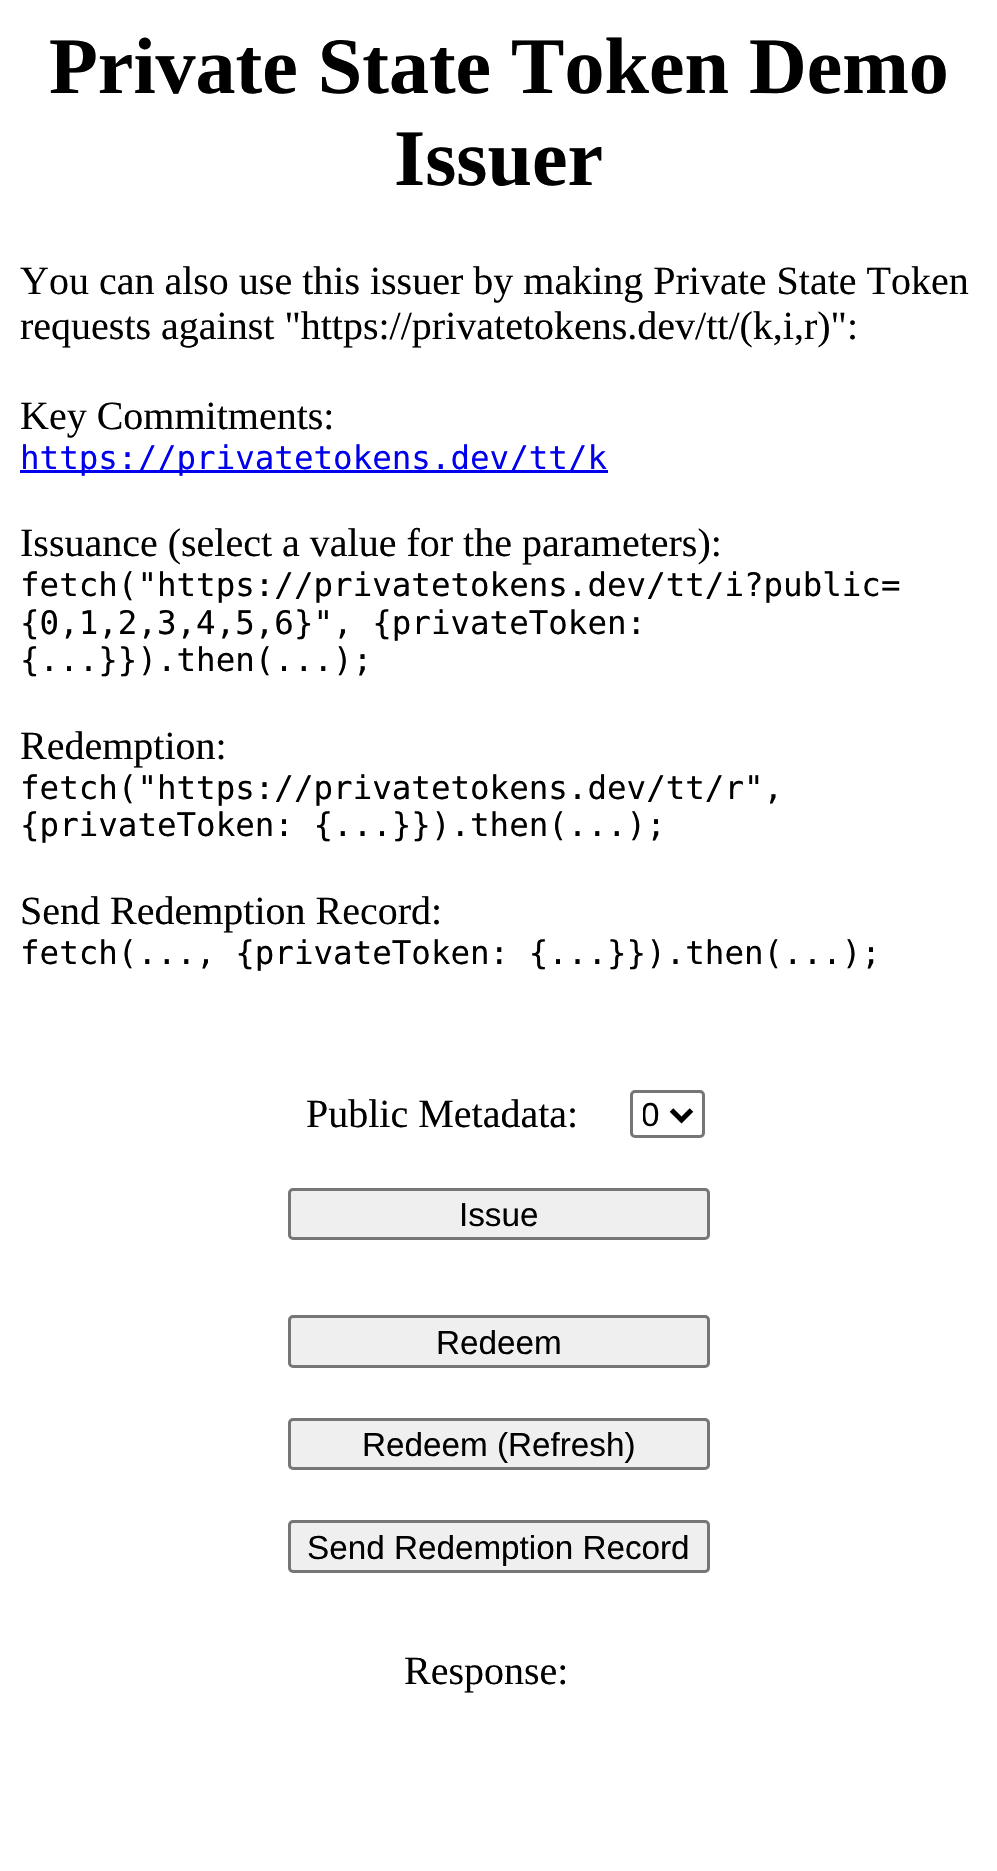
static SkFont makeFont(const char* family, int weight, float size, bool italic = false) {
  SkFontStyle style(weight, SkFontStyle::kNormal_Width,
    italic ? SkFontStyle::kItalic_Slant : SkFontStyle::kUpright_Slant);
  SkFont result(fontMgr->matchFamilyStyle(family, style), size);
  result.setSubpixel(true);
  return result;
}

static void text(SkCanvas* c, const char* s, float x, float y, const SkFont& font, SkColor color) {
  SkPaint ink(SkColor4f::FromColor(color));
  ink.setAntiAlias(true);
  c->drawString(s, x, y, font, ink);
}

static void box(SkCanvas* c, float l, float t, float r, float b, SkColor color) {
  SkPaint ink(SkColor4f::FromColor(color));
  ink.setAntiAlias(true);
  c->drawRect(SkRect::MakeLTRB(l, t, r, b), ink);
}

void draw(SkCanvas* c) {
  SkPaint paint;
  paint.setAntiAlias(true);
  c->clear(0xffffffff);
  SkFont face1 = makeFont("Liberation Serif", 700, 80);
  text(c, "Private State Token Demo", 49, 93, face1, 0xff000000);
  text(c, "Issuer", 394, 185, face1, 0xff000000);
  SkFont face2 = makeFont("Liberation Serif", 400, 40);
  text(c, "You can also use this issuer by making Private State Token", 20, 294, face2, 0xff000000);
  text(c, "requests against \"https://privatetokens.dev/tt/(k,i,r)\":", 20, 339, face2, 0xff000000);
  text(c, "Key Commitments:", 20, 429, face2, 0xff000000);
  box(c, 20, 470, 608, 473, 0xff0000ee);
  SkFont face3 = makeFont("DejaVu Sans Mono", 400, 32.5f);
  text(c, "https://privatetokens.dev/tt/k", 20, 469, face3, 0xff0000ee);
  text(c, "Issuance (select a value for the parameters):", 20, 556, face2, 0xff000000);
  text(c, "fetch(\"https://privatetokens.dev/tt/i?public=", 20, 596, face3, 0xff000000);
  text(c, "{0,1,2,3,4,5,6}\", {privateToken:", 20, 634, face3, 0xff000000);
  text(c, "{...}}).then(...);", 20, 671, face3, 0xff000000);
  text(c, "Redemption:", 20, 759, face2, 0xff000000);
  text(c, "fetch(\"https://privatetokens.dev/tt/r\",", 20, 799, face3, 0xff000000);
  text(c, "{privateToken: {...}}).then(...);", 20, 836, face3, 0xff000000);
  text(c, "Send Redemption Record:", 20, 924, face2, 0xff000000);
  text(c, "fetch(..., {privateToken: {...}}).then(...);", 20, 964, face3, 0xff000000);
  text(c, "Public Metadata:", 306, 1127, face2, 0xff000000);
  paint.setStyle(SkPaint::kStroke_Style);
  paint.setStrokeWidth(3);
  paint.setColor(0xff767676);
  c->drawRoundRect(SkRect::MakeLTRB(631.5f, 1091.5f, 703.5f, 1136.5f), 3.5f, 3.5f, paint);
  paint.setStrokeWidth(5);
  paint.setColor(0xff000000);
  c->drawPath(SkPathBuilder().moveTo(671.5f, 1110).lineTo(681.5f, 1120).lineTo(691.5f, 1110).detach(), paint);
  c->save();
  c->clipRect(SkRect::MakeLTRB(643, 1093, 663, 1135));
  SkFont face4 = makeFont("Liberation Sans", 400, 33.25f);
  text(c, "0", 641, 1126, face4, 0xff000000);
  c->restore();
  paint.setStyle(SkPaint::kFill_Style);
  paint.setColor(0xffefefef);
  c->drawRoundRect(SkRect::MakeLTRB(289.5f, 1189.5f, 708.5f, 1238.5f), 3.5f, 3.5f, paint);
  paint.setStyle(SkPaint::kStroke_Style);
  paint.setStrokeWidth(3);
  paint.setColor(0xff767676);
  c->drawRoundRect(SkRect::MakeLTRB(289.5f, 1189.5f, 708.5f, 1238.5f), 3.5f, 3.5f, paint);
  text(c, "Issue", 459, 1226, face4, 0xff000000);
  paint.setStyle(SkPaint::kFill_Style);
  paint.setColor(0xffefefef);
  c->drawRoundRect(SkRect::MakeLTRB(289.5f, 1316.5f, 708.5f, 1366.5f), 3.5f, 3.5f, paint);
  paint.setStyle(SkPaint::kStroke_Style);
  paint.setColor(0xff767676);
  c->drawRoundRect(SkRect::MakeLTRB(289.5f, 1316.5f, 708.5f, 1366.5f), 3.5f, 3.5f, paint);
  text(c, "Redeem", 436, 1354, face4, 0xff000000);
  paint.setStyle(SkPaint::kFill_Style);
  paint.setColor(0xffefefef);
  c->drawRoundRect(SkRect::MakeLTRB(289.5f, 1419.5f, 708.5f, 1468.5f), 3.5f, 3.5f, paint);
  paint.setStyle(SkPaint::kStroke_Style);
  paint.setColor(0xff767676);
  c->drawRoundRect(SkRect::MakeLTRB(289.5f, 1419.5f, 708.5f, 1468.5f), 3.5f, 3.5f, paint);
  text(c, "Redeem (Refresh)", 362, 1456, face4, 0xff000000);
  paint.setStyle(SkPaint::kFill_Style);
  paint.setColor(0xffefefef);
  c->drawRoundRect(SkRect::MakeLTRB(289.5f, 1521.5f, 708.5f, 1571.5f), 3.5f, 3.5f, paint);
  paint.setStyle(SkPaint::kStroke_Style);
  paint.setColor(0xff767676);
  c->drawRoundRect(SkRect::MakeLTRB(289.5f, 1521.5f, 708.5f, 1571.5f), 3.5f, 3.5f, paint);
  text(c, "Send Redemption Record", 307, 1559, face4, 0xff000000);
  text(c, "Response:", 404, 1684, face2, 0xff000000);
}
